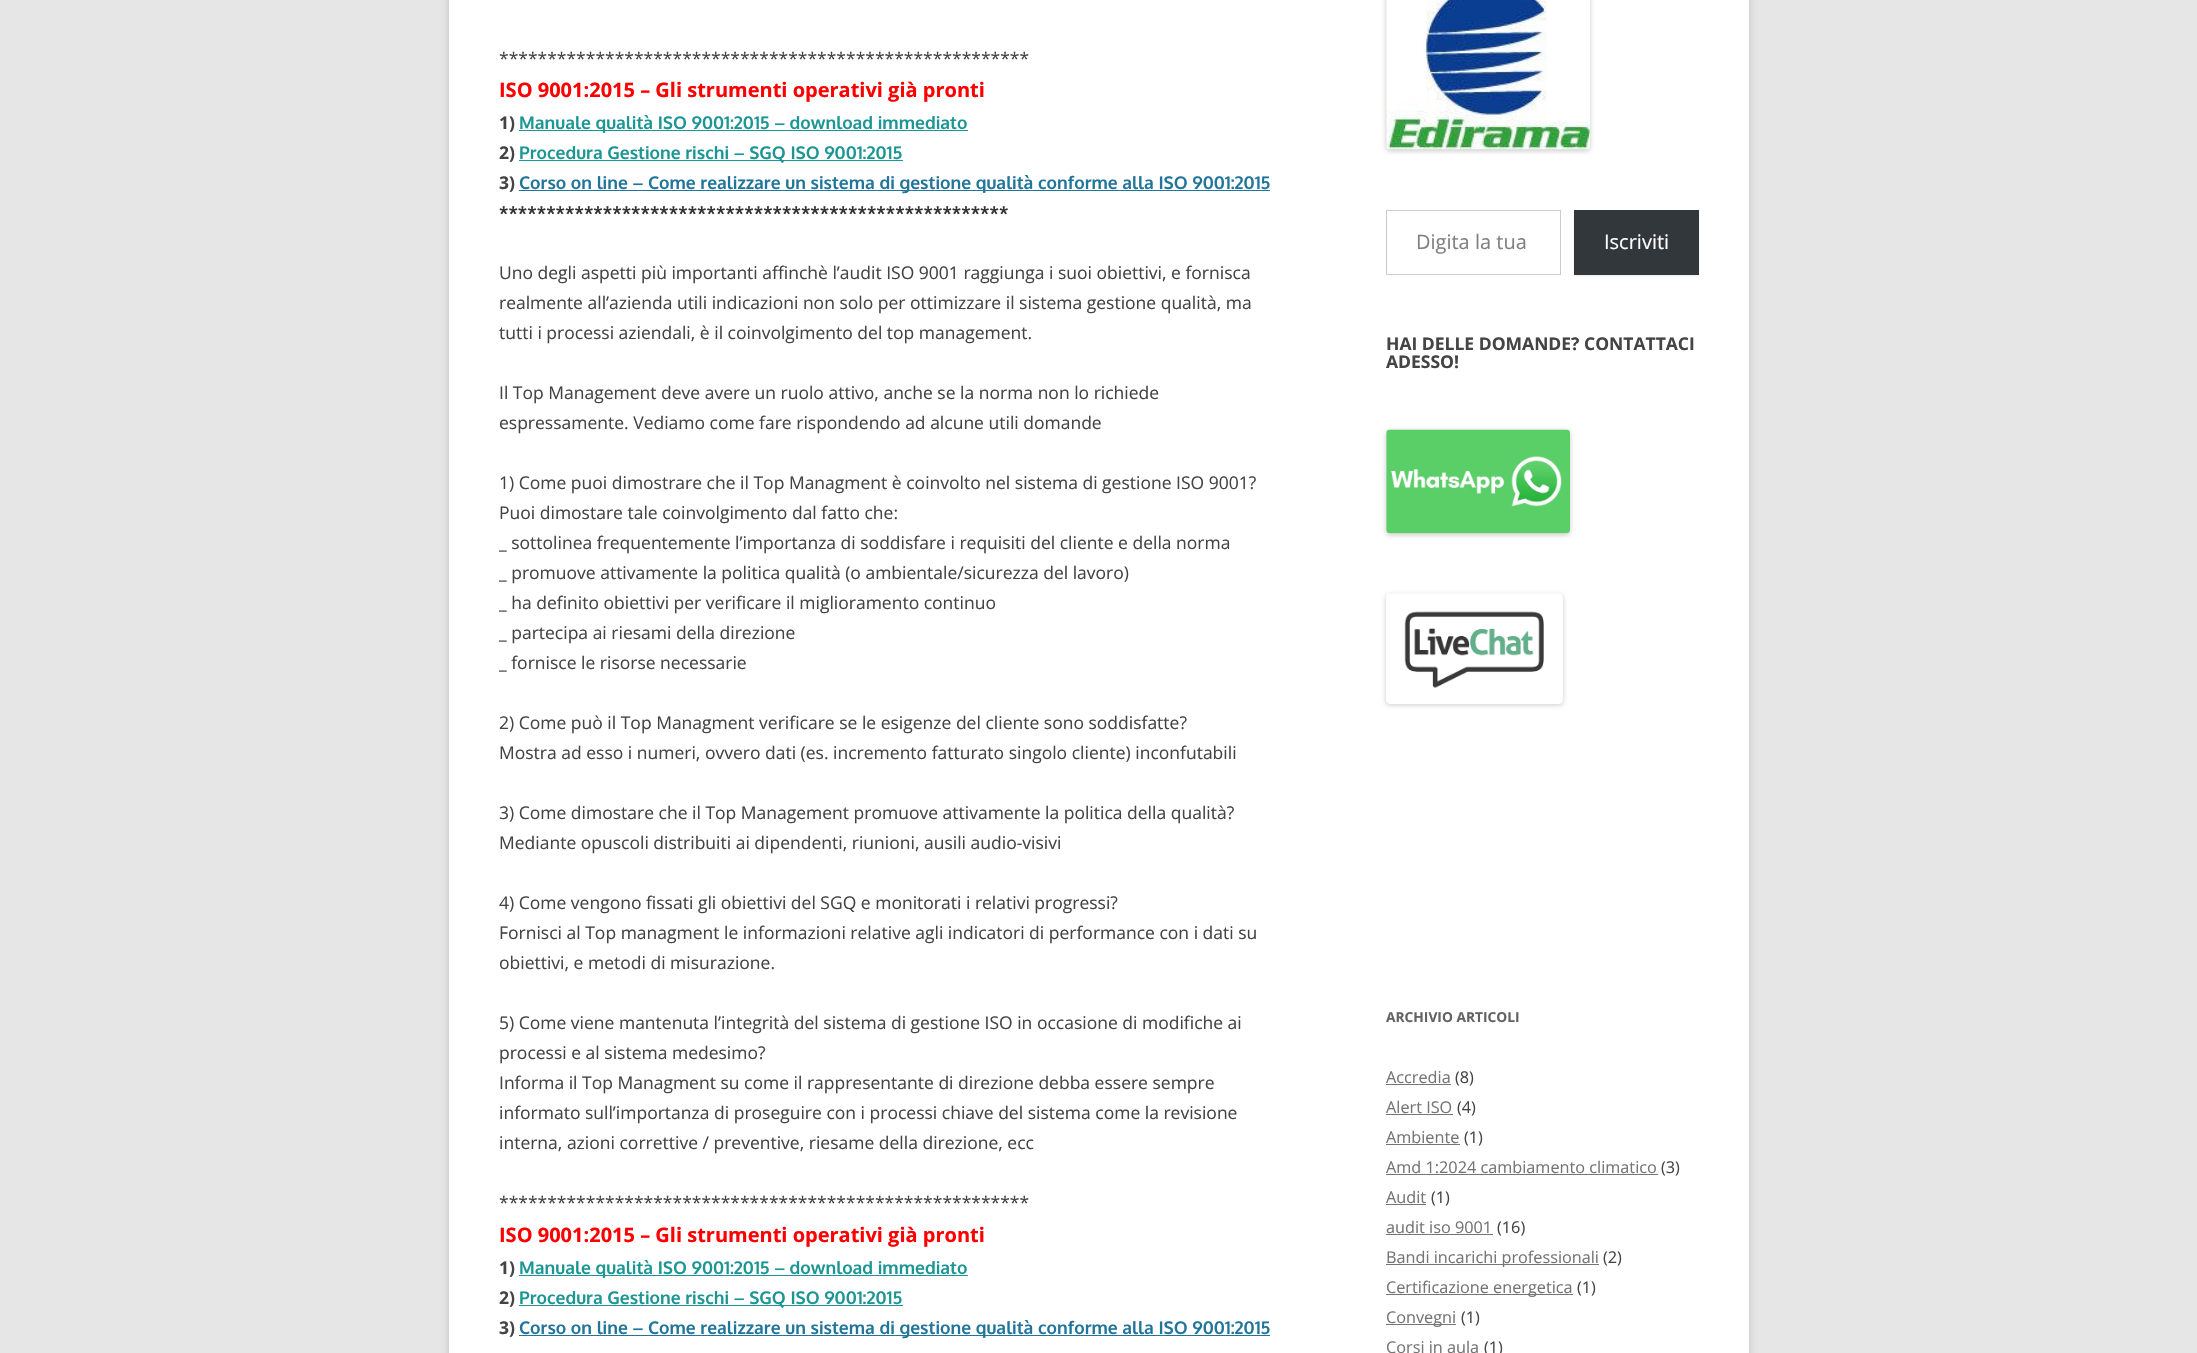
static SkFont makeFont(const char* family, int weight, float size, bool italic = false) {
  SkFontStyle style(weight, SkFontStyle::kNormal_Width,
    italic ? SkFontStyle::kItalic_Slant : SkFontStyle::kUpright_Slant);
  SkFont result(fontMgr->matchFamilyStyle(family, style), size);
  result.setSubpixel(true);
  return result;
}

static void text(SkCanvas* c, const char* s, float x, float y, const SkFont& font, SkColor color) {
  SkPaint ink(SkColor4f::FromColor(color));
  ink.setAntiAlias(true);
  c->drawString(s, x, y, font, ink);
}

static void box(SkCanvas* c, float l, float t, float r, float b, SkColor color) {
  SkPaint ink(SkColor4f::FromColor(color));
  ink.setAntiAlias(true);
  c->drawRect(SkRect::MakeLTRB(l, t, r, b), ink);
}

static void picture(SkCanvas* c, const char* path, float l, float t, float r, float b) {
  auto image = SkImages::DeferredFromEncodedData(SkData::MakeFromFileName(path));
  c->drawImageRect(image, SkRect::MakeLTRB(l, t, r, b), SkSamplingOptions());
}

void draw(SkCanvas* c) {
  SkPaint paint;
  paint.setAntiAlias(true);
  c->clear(0xffe6e6e6);
  paint.setColor(0x4d646464);
  paint.setMaskFilter(SkMaskFilter::MakeBlur(kNormal_SkBlurStyle, 4));
  c->drawRect(SkRect::MakeLTRB(449, -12, 1749, 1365), paint);
  paint.setMaskFilter(nullptr);
  box(c, 449, 0, 1749, 1353, 0xffffffff);
  SkFont face1 = makeFont("Open Sans", 400, 17.5f);
  text(c, "*******************************************************", 499, 65, face1, 0xff444444);
  SkFont face2 = makeFont("Open Sans", 700, 20);
  text(c, "ISO 9001:2015 – Gli strumenti operativi già pronti", 499, 97, face2, 0xffff0000);
  SkFont face3 = makeFont("Open Sans", 700, 17.5f);
  text(c, "1)", 499, 129, face3, 0xff444444);
  box(c, 519, 130, 968, 131, 0xff1c9694);
  SkFont face4 = makeFont("Oxygen", 700, 17.5f);
  text(c, "Manuale qualità ISO 9001:2015 – download immediato", 519, 129, face4, 0xff1c9694);
  text(c, "2)", 499, 159, face3, 0xff444444);
  box(c, 519, 160, 903, 161, 0xff1c9694);
  text(c, "Procedura Gestione rischi – SGQ ISO 9001:2015", 519, 159, face4, 0xff1c9694);
  text(c, "3)", 499, 189, face3, 0xff444444);
  box(c, 519, 190, 1270, 191, 0xff21759b);
  text(c, "Corso on line – Come realizzare un sistema di gestione qualità conforme alla ISO 9001:2015", 519, 189, face4, 0xff21759b);
  text(c, "******************************************************", 499, 219, face4, 0xff333333);
  text(c, "Uno degli aspetti più importanti affinchè l’audit ISO 9001 raggiunga i suoi obiettivi, e fornisca", 499, 279, face1, 0xff444444);
  text(c, "realmente all’azienda utili indicazioni non solo per ottimizzare il sistema gestione qualità, ma", 499, 309, face1, 0xff444444);
  text(c, "tutti i processi aziendali, è il coinvolgimento del top management.", 499, 339, face1, 0xff444444);
  text(c, "Il Top Management deve avere un ruolo attivo, anche se la norma non lo richiede", 499, 399, face1, 0xff444444);
  text(c, "espressamente. Vediamo come fare rispondendo ad alcune utili domande", 499, 429, face1, 0xff444444);
  text(c, "1) Come puoi dimostrare che il Top Managment è coinvolto nel sistema di gestione ISO 9001?", 499, 489, face1, 0xff444444);
  text(c, "Puoi dimostare tale coinvolgimento dal fatto che:", 499, 519, face1, 0xff444444);
  text(c, "_ sottolinea frequentemente l’importanza di soddisfare i requisiti del cliente e della norma", 499, 549, face1, 0xff444444);
  text(c, "_ promuove attivamente la politica qualità (o ambientale/sicurezza del lavoro)", 499, 579, face1, 0xff444444);
  text(c, "_ ha definito obiettivi per verificare il miglioramento continuo", 499, 609, face1, 0xff444444);
  text(c, "_ partecipa ai riesami della direzione", 499, 639, face1, 0xff444444);
  text(c, "_ fornisce le risorse necessarie", 499, 669, face1, 0xff444444);
  text(c, "2) Come può il Top Managment verificare se le esigenze del cliente sono soddisfatte?", 499, 729, face1, 0xff444444);
  text(c, "Mostra ad esso i numeri, ovvero dati (es. incremento fatturato singolo cliente) inconfutabili", 499, 759, face1, 0xff444444);
  text(c, "3) Come dimostare che il Top Management promuove attivamente la politica della qualità?", 499, 819, face1, 0xff444444);
  text(c, "Mediante opuscoli distribuiti ai dipendenti, riunioni, ausili audio-visivi", 499, 849, face1, 0xff444444);
  text(c, "4) Come vengono fissati gli obiettivi del SGQ e monitorati i relativi progressi?", 499, 909, face1, 0xff444444);
  text(c, "Fornisci al Top managment le informazioni relative agli indicatori di performance con i dati su", 499, 939, face1, 0xff444444);
  text(c, "obiettivi, e metodi di misurazione.", 499, 969, face1, 0xff444444);
  text(c, "5) Come viene mantenuta l’integrità del sistema di gestione ISO in occasione di modifiche ai", 499, 1029, face1, 0xff444444);
  text(c, "processi e al sistema medesimo?", 499, 1059, face1, 0xff444444);
  text(c, "Informa il Top Managment su come il rappresentante di direzione debba essere sempre", 499, 1089, face1, 0xff444444);
  text(c, "informato sull’importanza di proseguire con i processi chiave del sistema come la revisione", 499, 1119, face1, 0xff444444);
  text(c, "interna, azioni correttive / preventive, riesame della direzione, ecc", 499, 1149, face1, 0xff444444);
  text(c, "*******************************************************", 499, 1209, face1, 0xff444444);
  text(c, "ISO 9001:2015 – Gli strumenti operativi già pronti", 499, 1242, face2, 0xffff0000);
  text(c, "1)", 499, 1274, face3, 0xff444444);
  box(c, 519, 1275, 968, 1276, 0xff1c9694);
  text(c, "Manuale qualità ISO 9001:2015 – download immediato", 519, 1274, face4, 0xff1c9694);
  text(c, "2)", 499, 1304, face3, 0xff444444);
  box(c, 519, 1305, 903, 1306, 0xff1c9694);
  text(c, "Procedura Gestione rischi – SGQ ISO 9001:2015", 519, 1304, face4, 0xff1c9694);
  text(c, "3)", 499, 1334, face3, 0xff444444);
  box(c, 519, 1335, 1270, 1336, 0xff21759b);
  text(c, "Corso on line – Come realizzare un sistema di gestione qualità conforme alla ISO 9001:2015", 519, 1334, face4, 0xff21759b);
  paint.setColor(0x33000000);
  paint.setMaskFilter(SkMaskFilter::MakeBlur(kNormal_SkBlurStyle, 2.5f));
  c->drawRoundRect(SkRect::MakeLTRB(1386, -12, 1590, 151), 4, 4, paint);
  paint.setMaskFilter(nullptr);
  picture(c, "img_01.png", 1386, 0, 1590, 150);
  paint.setStyle(SkPaint::kStroke_Style);
  paint.setStrokeWidth(1);
  paint.setColor(0xffcccccc);
  c->drawRect(SkRect::MakeLTRB(1386.5f, 210.5f, 1560.5f, 274.5f), paint);
  SkFont face5 = makeFont("Open Sans", 400, 20);
  text(c, "Digita la tua", 1416, 249, face5, 0xff808080);
  paint.setStyle(SkPaint::kFill_Style);
  paint.setColor(0x1a404040);
  paint.setMaskFilter(SkMaskFilter::MakeBlur(kNormal_SkBlurStyle, 1));
  c->drawRect(SkRect::MakeLTRB(1574, 211, 1699, 276), paint);
  paint.setMaskFilter(nullptr);
  box(c, 1574, 210, 1699, 275, 0xff32373c);
  text(c, "Iscriviti", 1604, 249, face5, 0xffffffff);
  text(c, "HAI DELLE DOMANDE? CONTATTACI", 1386, 350, face3, 0xff444444);
  text(c, "ADESSO!", 1386, 368, face3, 0xff444444);
  paint.setColor(0x33000000);
  paint.setMaskFilter(SkMaskFilter::MakeBlur(kNormal_SkBlurStyle, 2.5f));
  c->drawRoundRect(SkRect::MakeLTRB(1386, 431, 1570, 535), 4, 4, paint);
  paint.setMaskFilter(nullptr);
  picture(c, "img_02.png", 1386, 429, 1570, 534);
  c->save();
  c->clipPath(SkPathBuilder(SkPathFillType::kEvenOdd).moveTo(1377, 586).lineTo(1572, 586).lineTo(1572, 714).lineTo(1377, 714).close().moveTo(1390, 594).lineTo(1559, 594).cubicTo(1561, 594, 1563, 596, 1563, 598).lineTo(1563, 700).cubicTo(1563, 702, 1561, 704, 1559, 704).lineTo(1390, 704).cubicTo(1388, 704, 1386, 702, 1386, 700).lineTo(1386, 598).cubicTo(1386, 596, 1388, 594, 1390, 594).close().detach(), true);
  paint.setMaskFilter(SkMaskFilter::MakeBlur(kNormal_SkBlurStyle, 2.5f));
  c->drawRoundRect(SkRect::MakeLTRB(1386, 595, 1563, 705), 4, 4, paint);
  paint.setMaskFilter(nullptr);
  c->restore();
  picture(c, "img_03.png", 1386, 593, 1562, 700);
  SkFont face6 = makeFont("Open Sans", 700, 13.75f);
  text(c, "ARCHIVIO ARTICOLI", 1386, 1022, face6, 0xff636363);
  SkFont face7 = makeFont("Open Sans", 400, 16.25f);
  text(c, "Accredia", 1386, 1083, face7, 0xff757575);
  box(c, 1386, 1084, 1451, 1085, 0xff757575);
  text(c, "(8)", 1455, 1083, face7, 0xff444444);
  text(c, "Alert ISO", 1386, 1113, face7, 0xff757575);
  box(c, 1386, 1114, 1453, 1115, 0xff757575);
  text(c, "(4)", 1457, 1113, face7, 0xff444444);
  text(c, "Ambiente", 1386, 1143, face7, 0xff757575);
  box(c, 1386, 1144, 1460, 1145, 0xff757575);
  text(c, "(1)", 1464, 1143, face7, 0xff444444);
  text(c, "Amd 1:2024 cambiamento climatico", 1386, 1173, face7, 0xff757575);
  box(c, 1386, 1174, 1658, 1175, 0xff757575);
  text(c, "(3)", 1661, 1173, face7, 0xff444444);
  text(c, "Audit", 1386, 1203, face7, 0xff757575);
  box(c, 1386, 1204, 1426, 1205, 0xff757575);
  text(c, "(1)", 1431, 1203, face7, 0xff444444);
  text(c, "audit iso 9001", 1386, 1233, face7, 0xff757575);
  box(c, 1386, 1234, 1493, 1235, 0xff757575);
  text(c, "(16)", 1497, 1233, face7, 0xff444444);
  box(c, 1386, 1264, 1599, 1265, 0xff757575);
  text(c, "Bandi incarichi professionali", 1386, 1263, face7, 0xff757575);
  text(c, "(2)", 1603, 1263, face7, 0xff444444);
  box(c, 1386, 1294, 1573, 1295, 0xff757575);
  text(c, "Certificazione energetica", 1386, 1293, face7, 0xff757575);
  text(c, "(1)", 1577, 1293, face7, 0xff444444);
  box(c, 1386, 1324, 1456, 1325, 0xff757575);
  text(c, "Convegni", 1386, 1323, face7, 0xff757575);
  text(c, "(1)", 1461, 1323, face7, 0xff444444);
  text(c, "Corsi in aula", 1386, 1353, face7, 0xff757575);
  text(c, "(1)", 1484, 1353, face7, 0xff444444);
}
